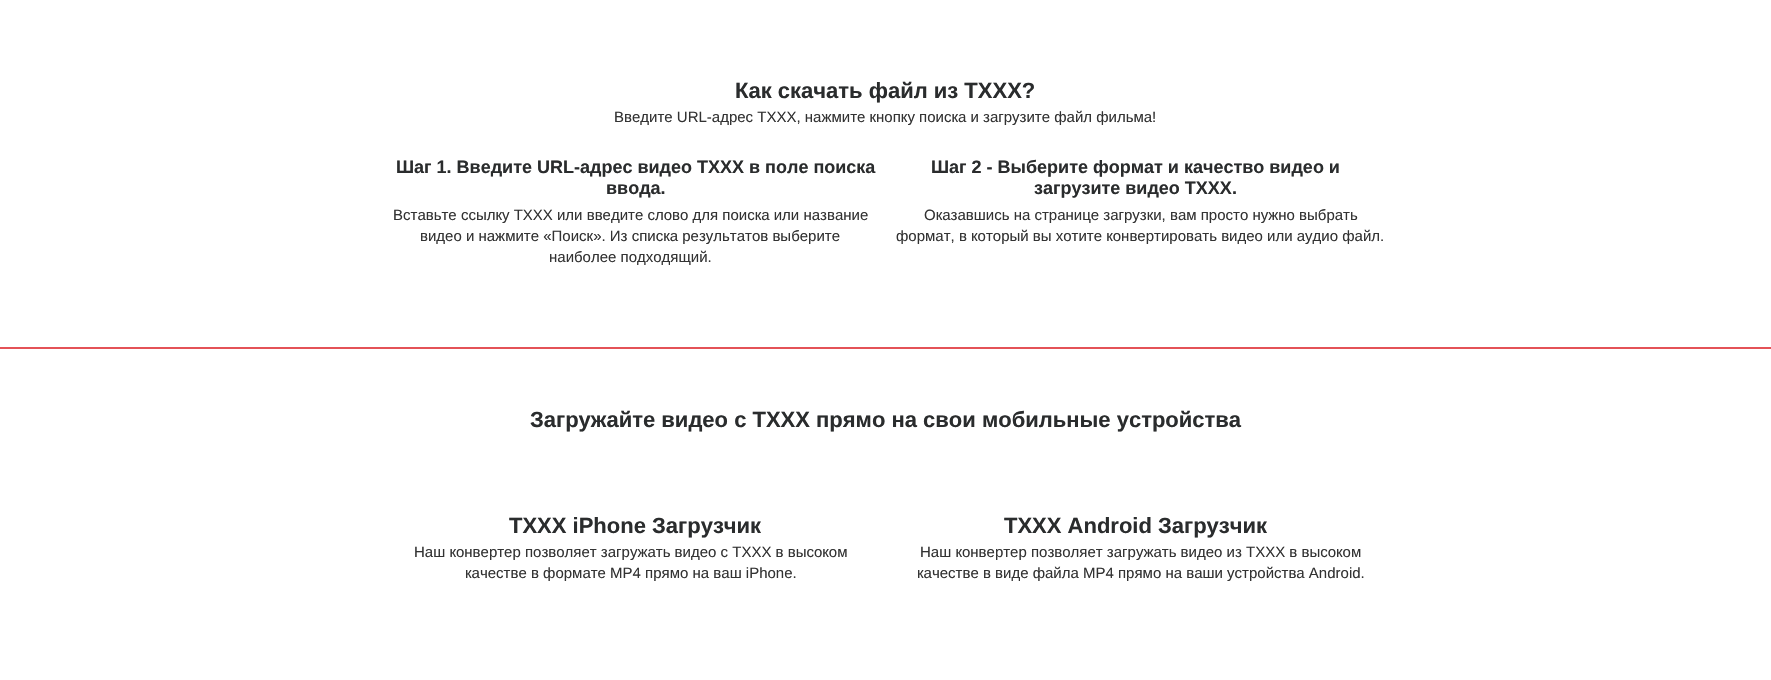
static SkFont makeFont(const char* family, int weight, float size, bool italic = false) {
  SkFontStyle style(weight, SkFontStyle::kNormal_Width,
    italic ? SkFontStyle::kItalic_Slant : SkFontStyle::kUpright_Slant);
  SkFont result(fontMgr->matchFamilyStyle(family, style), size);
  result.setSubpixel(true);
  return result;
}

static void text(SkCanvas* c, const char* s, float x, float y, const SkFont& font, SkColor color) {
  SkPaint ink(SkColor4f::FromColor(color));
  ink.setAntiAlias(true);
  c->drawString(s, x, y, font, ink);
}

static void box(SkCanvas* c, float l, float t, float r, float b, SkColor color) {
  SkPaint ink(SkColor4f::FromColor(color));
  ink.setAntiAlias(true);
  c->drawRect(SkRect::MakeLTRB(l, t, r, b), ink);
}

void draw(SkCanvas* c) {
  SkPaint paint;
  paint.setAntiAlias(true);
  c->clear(0xffffffff);
  SkFont face1 = makeFont("Liberation Sans", 700, 22);
  text(c, "Как скачать файл из TXXX?", 735, 98, face1, 0xff2a2c2d);
  SkFont face2 = makeFont("Liberation Sans", 400, 15);
  text(c, "Введите URL-адрес TXXX, нажмите кнопку поиска и загрузите файл фильма!", 614, 122, face2, 0xff333333);
  SkFont face3 = makeFont("Liberation Sans", 700, 18);
  text(c, "Шаг 1. Введите URL-адрес видео TXXX в поле поиска", 396, 173, face3, 0xff2a2c2d);
  text(c, "ввода.", 606, 194, face3, 0xff2a2c2d);
  text(c, "Вставьте ссылку TXXX или введите слово для поиска или название", 393, 220, face2, 0xff333333);
  text(c, "видео и нажмите «Поиск». Из списка результатов выберите", 420, 241, face2, 0xff333333);
  text(c, "наиболее подходящий.", 549, 262, face2, 0xff333333);
  text(c, "Шаг 2 - Выберите формат и качество видео и", 931, 173, face3, 0xff2a2c2d);
  text(c, "загрузите видео TXXX.", 1034, 194, face3, 0xff2a2c2d);
  text(c, "Оказавшись на странице загрузки, вам просто нужно выбрать", 924, 220, face2, 0xff333333);
  text(c, "формат, в который вы хотите конвертировать видео или аудио файл.", 896, 241, face2, 0xff333333);
  box(c, 0, 347, 1771, 349, 0xffe45257);
  text(c, "Загружайте видео с TXXX прямо на свои мобильные устройства", 530, 427, face1, 0xff2a2c2d);
  text(c, "TXXX iPhone Загрузчик", 509, 533, face1, 0xff2a2c2d);
  text(c, "Наш конвертер позволяет загружать видео с TXXX в высоком", 414, 557, face2, 0xff333333);
  text(c, "качестве в формате MP4 прямо на ваш iPhone.", 465, 578, face2, 0xff333333);
  text(c, "TXXX Android Загрузчик", 1004, 533, face1, 0xff2a2c2d);
  text(c, "Наш конвертер позволяет загружать видео из TXXX в высоком", 920, 557, face2, 0xff333333);
  text(c, "качестве в виде файла MP4 прямо на ваши устройства Android.", 917, 578, face2, 0xff333333);
}
